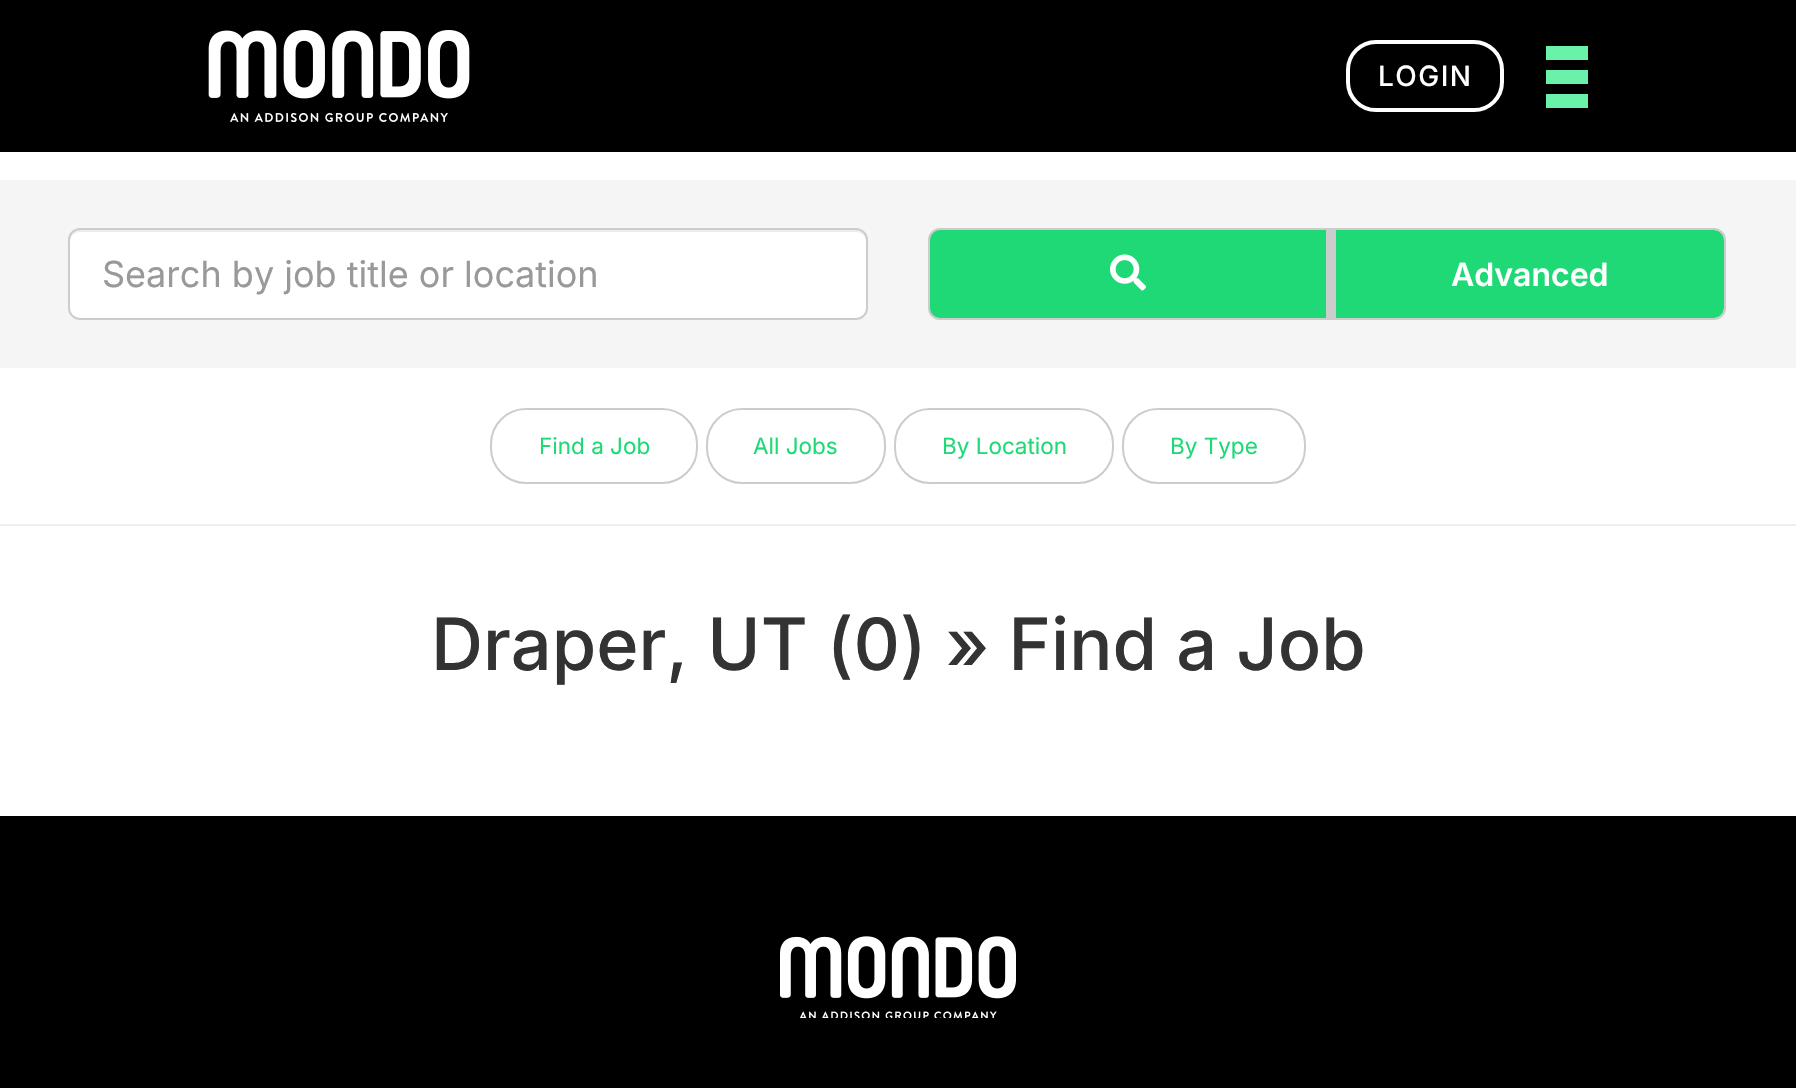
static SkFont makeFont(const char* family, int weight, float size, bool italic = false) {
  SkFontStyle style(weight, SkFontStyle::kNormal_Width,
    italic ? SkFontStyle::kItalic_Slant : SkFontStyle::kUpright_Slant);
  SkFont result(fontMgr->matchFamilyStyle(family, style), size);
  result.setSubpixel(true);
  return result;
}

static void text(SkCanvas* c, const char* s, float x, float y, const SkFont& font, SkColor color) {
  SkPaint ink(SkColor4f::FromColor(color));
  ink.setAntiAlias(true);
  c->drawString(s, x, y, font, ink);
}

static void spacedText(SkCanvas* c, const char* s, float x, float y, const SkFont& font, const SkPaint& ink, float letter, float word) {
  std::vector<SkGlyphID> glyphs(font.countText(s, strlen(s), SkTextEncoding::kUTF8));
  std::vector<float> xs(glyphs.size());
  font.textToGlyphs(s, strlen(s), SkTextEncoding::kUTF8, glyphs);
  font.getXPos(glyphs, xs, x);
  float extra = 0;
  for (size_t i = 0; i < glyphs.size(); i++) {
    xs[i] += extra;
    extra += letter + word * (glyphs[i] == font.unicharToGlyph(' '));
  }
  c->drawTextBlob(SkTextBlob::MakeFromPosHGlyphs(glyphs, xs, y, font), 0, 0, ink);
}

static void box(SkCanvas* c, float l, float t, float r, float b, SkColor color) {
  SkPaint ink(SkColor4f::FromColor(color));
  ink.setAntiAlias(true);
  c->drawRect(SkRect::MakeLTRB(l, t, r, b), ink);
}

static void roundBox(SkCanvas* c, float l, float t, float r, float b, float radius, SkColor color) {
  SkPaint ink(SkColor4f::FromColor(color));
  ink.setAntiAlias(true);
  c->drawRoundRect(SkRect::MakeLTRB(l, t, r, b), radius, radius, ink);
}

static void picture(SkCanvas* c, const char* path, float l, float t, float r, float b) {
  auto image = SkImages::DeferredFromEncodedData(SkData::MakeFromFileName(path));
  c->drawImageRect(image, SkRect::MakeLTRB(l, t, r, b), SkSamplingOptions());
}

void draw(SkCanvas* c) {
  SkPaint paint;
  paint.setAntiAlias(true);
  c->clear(0xffffffff);
  box(c, 0, 0, 1796, 152, 0xff000000);
  picture(c, "img_01.png", 208, 30, 470, 122);
  paint.setStyle(SkPaint::kStroke_Style);
  paint.setStrokeWidth(4);
  paint.setColor(0xffffffff);
  c->drawRoundRect(SkRect::MakeLTRB(1348, 42, 1502, 110), 28, 28, paint);
  SkFont face1 = makeFont("Inter", 500, 28);
  paint.setStyle(SkPaint::kFill_Style);
  spacedText(c, "LOGIN", 1378, 86, face1, paint, 1.5f, 0);
  box(c, 1546, 46, 1588, 60, 0xff6bf2aa);
  box(c, 1546, 70, 1588, 84, 0xff6bf2aa);
  box(c, 1546, 94, 1588, 108, 0xff6bf2aa);
  box(c, 0, 180, 1796, 368, 0xfff5f5f5);
  roundBox(c, 68, 228, 868, 320, 12, 0xffffffff);
  paint.setColor(0xffececec);
  c->drawPath(SkPathBuilder().moveTo(80, 232).lineTo(856, 232).cubicTo(862, 232, 866, 236, 866, 242).lineTo(866, 240).cubicTo(866, 234, 862, 230, 856, 230).lineTo(80, 230).cubicTo(74, 230, 70, 234, 70, 240).lineTo(70, 242).cubicTo(70, 236, 74, 232, 80, 232).close().detach(), paint);
  paint.setStyle(SkPaint::kStroke_Style);
  paint.setStrokeWidth(2);
  paint.setColor(0xffcccccc);
  c->drawRoundRect(SkRect::MakeLTRB(69, 229, 867, 319), 11, 11, paint);
  SkFont face2 = makeFont("Inter", 400, 36);
  text(c, "Search by job title or location", 102, 287, face2, 0xff999999);
  paint.setStyle(SkPaint::kFill_Style);
  paint.setColor(0xff1ed975);
  c->drawPath(SkPathBuilder().moveTo(940, 229).lineTo(1327, 229).lineTo(1327, 319).lineTo(940, 319).cubicTo(934, 319, 929, 314, 929, 308).lineTo(929, 240).cubicTo(929, 234, 934, 229, 940, 229).close().detach(), paint);
  paint.setStyle(SkPaint::kStroke_Style);
  paint.setColor(0xffcccccc);
  c->drawPath(SkPathBuilder().moveTo(940, 229).lineTo(1327, 229).lineTo(1327, 319).lineTo(940, 319).cubicTo(934, 319, 929, 314, 929, 308).lineTo(929, 240).cubicTo(929, 234, 934, 229, 940, 229).close().detach(), paint);
  picture(c, "img_02.png", 1110, 254, 1146, 291);
  paint.setStyle(SkPaint::kFill_Style);
  paint.setColor(0xff1ed975);
  c->drawPath(SkPathBuilder().moveTo(1336, 230).lineTo(1714, 230).cubicTo(1719.5f, 230, 1724, 234.5f, 1724, 240).lineTo(1724, 308).cubicTo(1724, 313.5f, 1719.5f, 318, 1714, 318).lineTo(1336, 318).close().detach(), paint);
  paint.setStyle(SkPaint::kStroke_Style);
  paint.setColor(0xffcccccc);
  c->drawPath(SkPathBuilder().moveTo(1327, 229).lineTo(1714, 229).cubicTo(1720, 229, 1725, 234, 1725, 240).lineTo(1725, 308).cubicTo(1725, 314, 1720, 319, 1714, 319).lineTo(1327, 319).close().detach(), paint);
  box(c, 1328, 228, 1336, 320, 0xffcccccc);
  SkFont face3 = makeFont("Inter", 600, 32);
  text(c, "Advanced", 1451, 286, face3, 0xffffffff);
  c->drawRoundRect(SkRect::MakeLTRB(491, 409, 697, 483), 35, 35, paint);
  SkFont face4 = makeFont("Inter", 400, 22.5f);
  text(c, "Find a Job", 539, 454, face4, 0xff1ed975);
  c->drawRoundRect(SkRect::MakeLTRB(707, 409, 885, 483), 35, 35, paint);
  text(c, "All Jobs", 753, 454, face4, 0xff1ed975);
  c->drawRoundRect(SkRect::MakeLTRB(895, 409, 1113, 483), 35, 35, paint);
  text(c, "By Location", 942, 454, face4, 0xff1ed975);
  c->drawRoundRect(SkRect::MakeLTRB(1123, 409, 1305, 483), 35, 35, paint);
  text(c, "By Type", 1170, 454, face4, 0xff1ed975);
  box(c, 0, 524, 1796, 526, 0xffeeeeee);
  SkFont face5 = makeFont("Inter", 500, 72);
  text(c, "Draper, UT (0) » Find a Job", 431, 670, face5, 0xff333333);
  box(c, 0, 816, 1796, 1088, 0xff000000);
  picture(c, "img_03.png", 780, 936, 1016, 1018);
}
